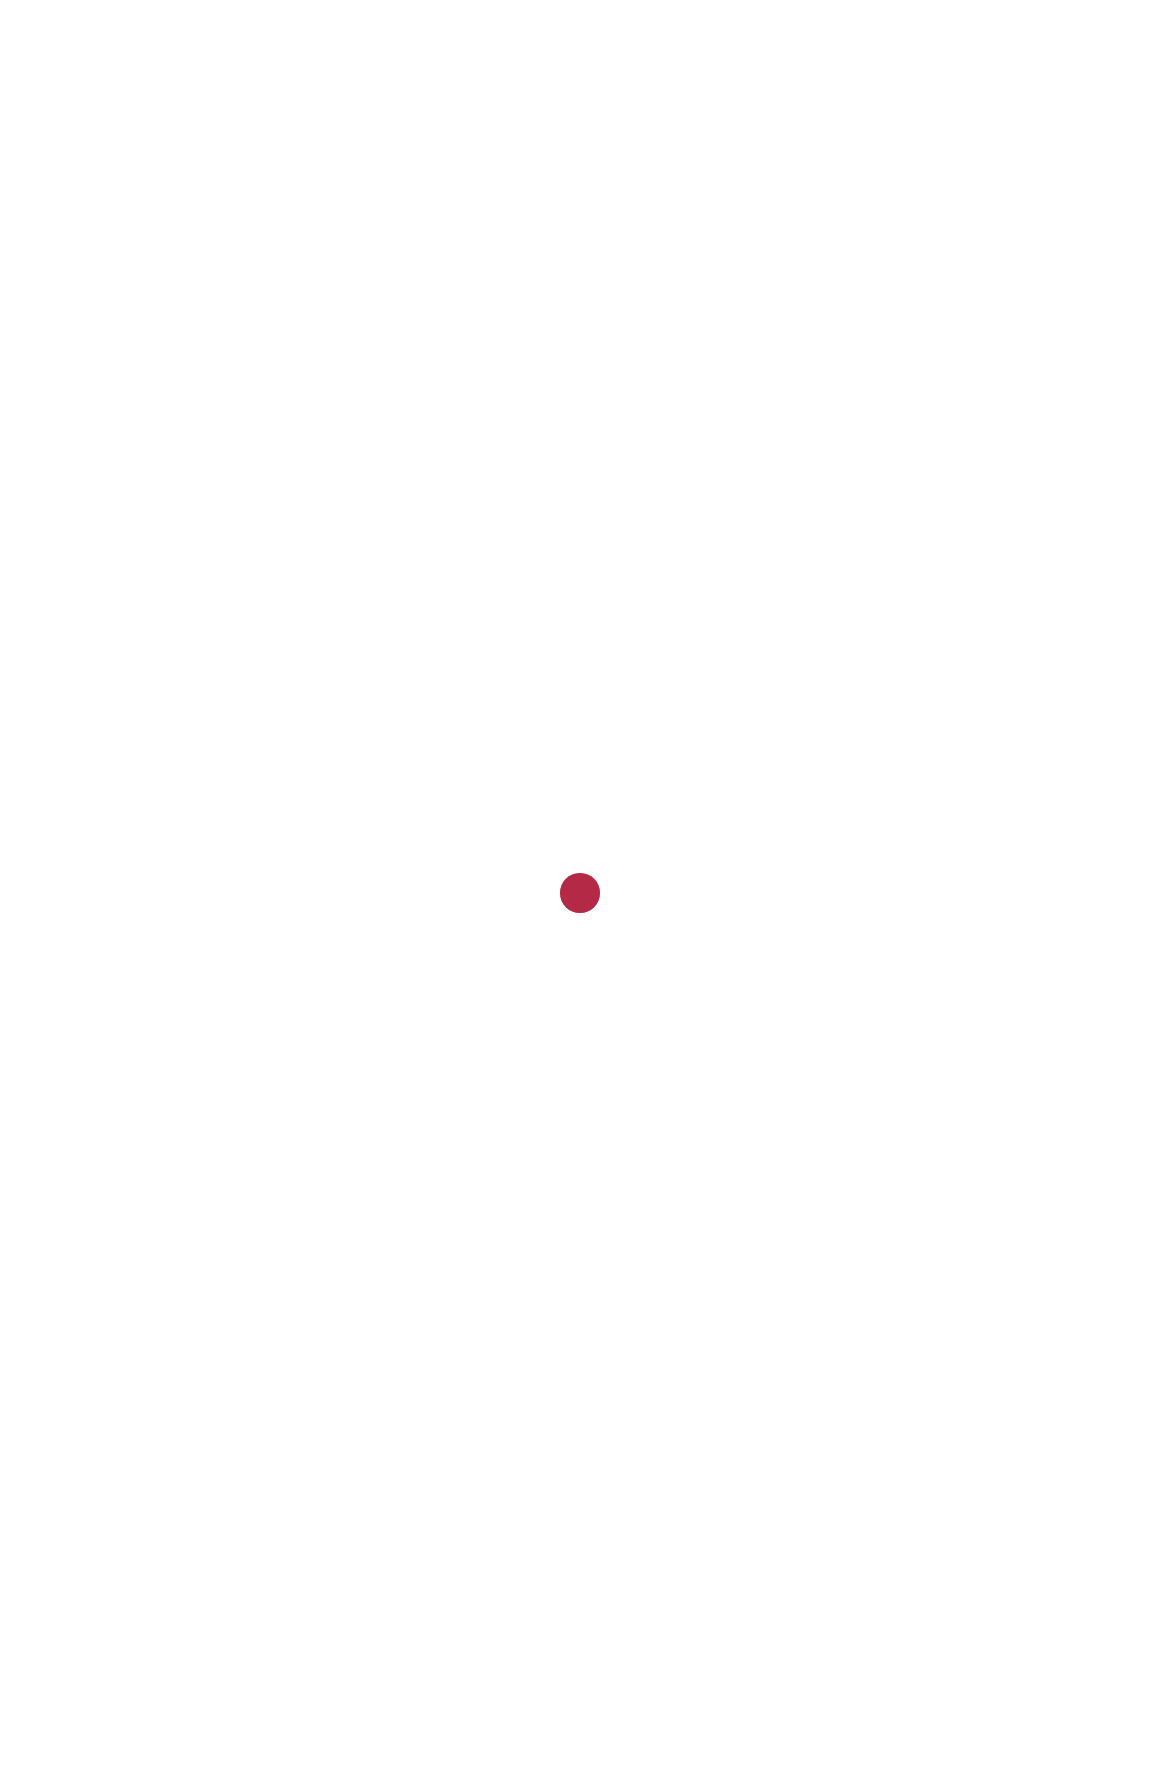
void draw(SkCanvas* c) {
  SkPaint paint;
  paint.setAntiAlias(true);
  c->clear(0xffffffff);
  paint.setColor(0xffc9667a);
  c->drawCircle(580, 893, 20, paint);
  paint.setColor(0x99a50022);
  c->drawCircle(580, 893, 20, paint);
}
